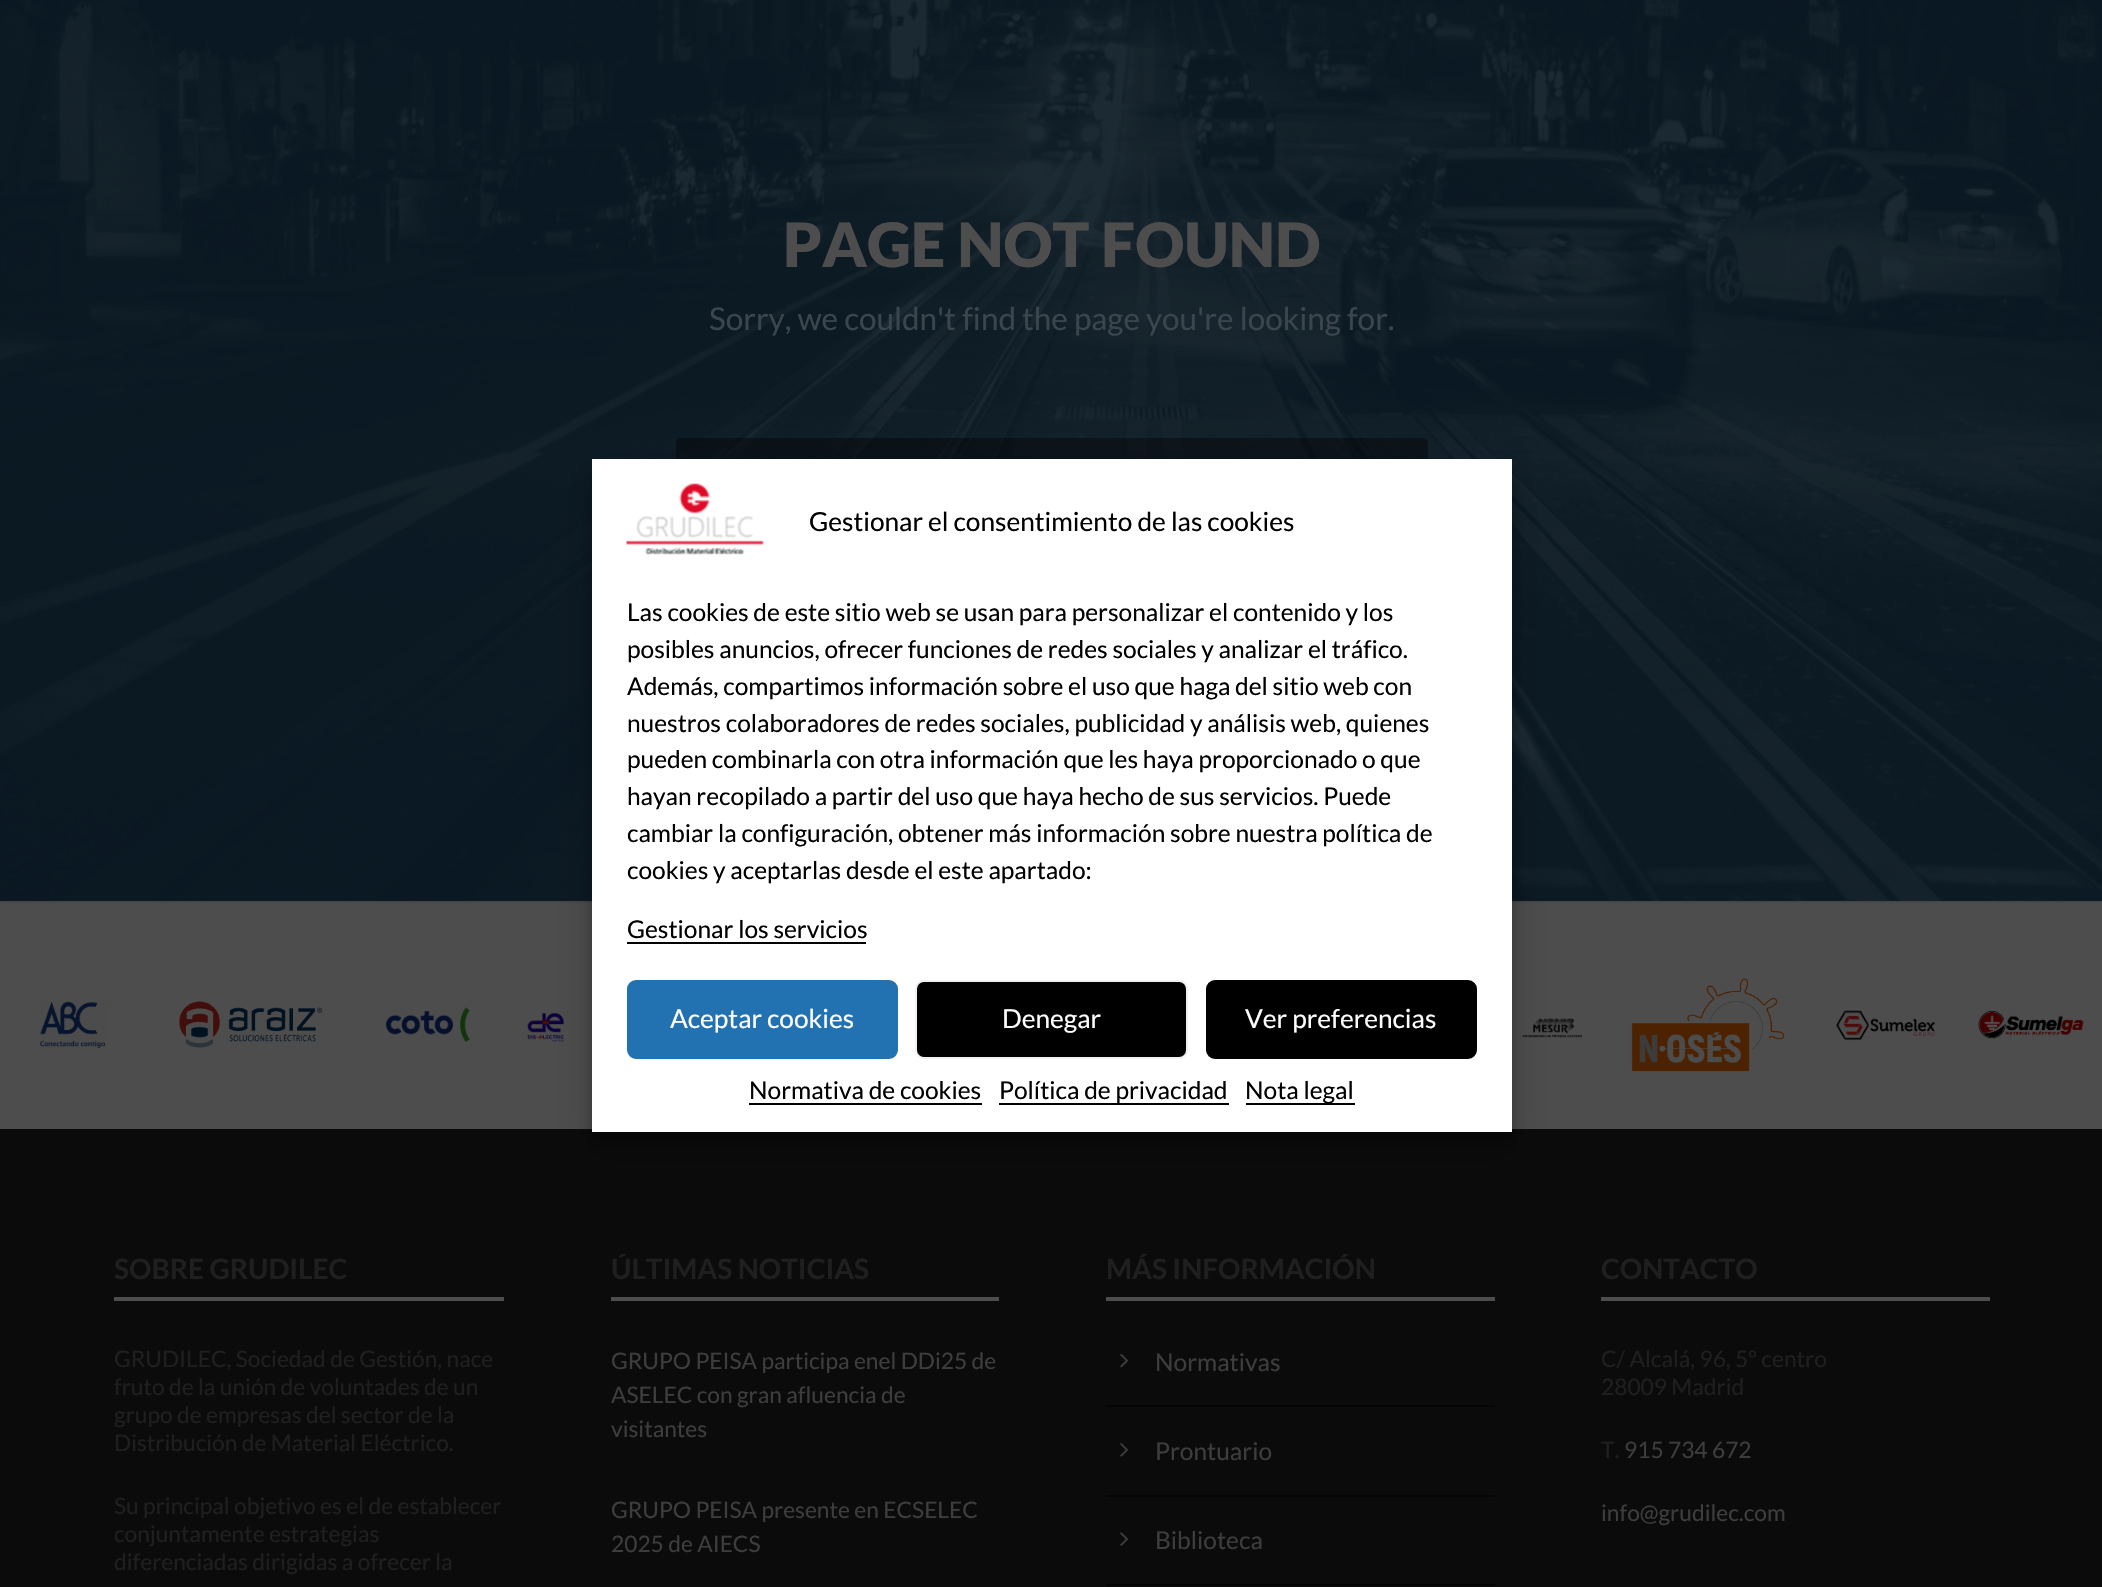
static SkFont makeFont(const char* family, int weight, float size, bool italic = false) {
  SkFontStyle style(weight, SkFontStyle::kNormal_Width,
    italic ? SkFontStyle::kItalic_Slant : SkFontStyle::kUpright_Slant);
  SkFont result(fontMgr->matchFamilyStyle(family, style), size);
  result.setSubpixel(true);
  return result;
}

static void text(SkCanvas* c, const char* s, float x, float y, const SkFont& font, SkColor color) {
  SkPaint ink(SkColor4f::FromColor(color));
  ink.setAntiAlias(true);
  c->drawString(s, x, y, font, ink);
}

static void box(SkCanvas* c, float l, float t, float r, float b, SkColor color) {
  SkPaint ink(SkColor4f::FromColor(color));
  ink.setAntiAlias(true);
  c->drawRect(SkRect::MakeLTRB(l, t, r, b), ink);
}

static void roundBox(SkCanvas* c, float l, float t, float r, float b, float radius, SkColor color) {
  SkPaint ink(SkColor4f::FromColor(color));
  ink.setAntiAlias(true);
  c->drawRoundRect(SkRect::MakeLTRB(l, t, r, b), radius, radius, ink);
}

static void picture(SkCanvas* c, const char* path, float l, float t, float r, float b) {
  auto image = SkImages::DeferredFromEncodedData(SkData::MakeFromFileName(path));
  c->drawImageRect(image, SkRect::MakeLTRB(l, t, r, b), SkSamplingOptions());
}

void draw(SkCanvas* c) {
  SkPaint paint;
  paint.setAntiAlias(true);
  c->clear(0xff4d4d4d);
  box(c, 0, 0, 2102, 901, 0xff0b1d2b);
  picture(c, "img_01.png", 0, 0, 2102, 901);
  SkFont face1 = makeFont("Lato", 900, 61.25f);
  text(c, "PAGE NOT FOUND", 783, 267, face1, 0xff4d4d4d);
  SkFont face2 = makeFont("Lato", 400, 31.5f);
  text(c, "Sorry, we couldn't find the page you're looking for.", 709, 330, face2, 0xff3b454d);
  roundBox(c, 676, 438, 1428, 550, 5, 0x66000000);
  box(c, 0, 901, 2102, 903, 0xff474747);
  picture(c, "img_02.png", 39, 1001, 106, 1048);
  picture(c, "img_03.png", 179, 1001, 323, 1048);
  picture(c, "img_04.png", 386, 1007, 470, 1042);
  picture(c, "img_05.png", 527, 1013, 565, 1042);
  picture(c, "img_06.png", 1522, 1018, 1582, 1038);
  picture(c, "img_07.png", 1631, 978, 1785, 1072);
  picture(c, "img_08.png", 1835, 1010, 1936, 1041);
  picture(c, "img_09.png", 1978, 1010, 2084, 1039);
  box(c, 0, 1129, 2102, 1587, 0xff0b0b0b);
  box(c, 114, 1297, 504, 1301, 0xff4d4d4d);
  SkFont face3 = makeFont("Lato", 700, 28);
  text(c, "SOBRE GRUDILEC", 114, 1279, face3, 0xff1f1f1f);
  SkFont face4 = makeFont("Lato", 400, 22.75f);
  text(c, "GRUDILEC, Sociedad de Gestión, nace", 114, 1367, face4, 0xff1f1f1f);
  text(c, "fruto de la unión de voluntades de un", 114, 1395, face4, 0xff1f1f1f);
  text(c, "grupo de empresas del sector de la", 114, 1423, face4, 0xff1f1f1f);
  text(c, "Distribución de Material Eléctrico.", 114, 1451, face4, 0xff1f1f1f);
  text(c, "Su principal objetivo es el de establecer", 114, 1514, face4, 0xff1f1f1f);
  text(c, "conjuntamente estrategias", 114, 1542, face4, 0xff1f1f1f);
  text(c, "diferenciadas dirigidas a ofrecer la", 114, 1570, face4, 0xff1f1f1f);
  box(c, 611, 1297, 999, 1301, 0xff4d4d4d);
  text(c, "ÚLTIMAS NOTICIAS", 611, 1279, face3, 0xff1f1f1f);
  text(c, "GRUPO PEISA participa enel DDi25 de", 611, 1369, face4, 0xff3d3d3d);
  text(c, "ASELEC con gran afluencia de", 611, 1403, face4, 0xff3d3d3d);
  text(c, "visitantes", 611, 1437, face4, 0xff3d3d3d);
  text(c, "GRUPO PEISA presente en ECSELEC", 611, 1518, face4, 0xff3d3d3d);
  text(c, "2025 de AIECS", 611, 1552, face4, 0xff3d3d3d);
  box(c, 1106, 1297, 1495, 1301, 0xff4d4d4d);
  text(c, "MÁS INFORMACIÓN", 1106, 1279, face3, 0xff1f1f1f);
  box(c, 1106, 1405, 1495, 1407, 0xff050505);
  picture(c, "img_10.png", 1120, 1353, 1129, 1368);
  SkFont face5 = makeFont("Lato", 400, 24.5f);
  text(c, "Normativas", 1155, 1371, face5, 0xff3d3d3d);
  box(c, 1106, 1495, 1495, 1497, 0xff050505);
  picture(c, "img_11.png", 1120, 1443, 1129, 1457);
  text(c, "Prontuario", 1155, 1460, face5, 0xff3d3d3d);
  box(c, 1106, 1584, 1495, 1586, 0xff050505);
  picture(c, "img_12.png", 1120, 1532, 1129, 1546);
  text(c, "Biblioteca", 1155, 1549, face5, 0xff3d3d3d);
  box(c, 1601, 1297, 1990, 1301, 0xff4d4d4d);
  text(c, "CONTACTO", 1601, 1279, face3, 0xff1f1f1f);
  text(c, "C/ Alcalá, 96, 5º centro", 1601, 1367, face4, 0xff1f1f1f);
  text(c, "28009 Madrid", 1601, 1395, face4, 0xff1f1f1f);
  text(c, "T.", 1601, 1458, face4, 0xff1f1f1f);
  text(c, "915 734 672", 1624, 1458, face4, 0xff3d3d3d);
  text(c, "info@grudilec.com", 1601, 1521, face4, 0xff3d3d3d);
  paint.setColor(0x3b000000);
  paint.setMaskFilter(SkMaskFilter::MakeBlur(kNormal_SkBlurStyle, 5));
  c->drawRect(SkRect::MakeLTRB(592, 469, 1512, 1143), paint);
  paint.setMaskFilter(nullptr);
  paint.setColor(0x30000000);
  paint.setMaskFilter(SkMaskFilter::MakeBlur(kNormal_SkBlurStyle, 17.5f));
  c->drawRect(SkRect::MakeLTRB(592, 476, 1512, 1150), paint);
  paint.setMaskFilter(nullptr);
  box(c, 592, 459, 1512, 1132, 0xffffffff);
  picture(c, "img_13.png", 626, 483, 764, 555);
  SkFont face6 = makeFont("Lato", 400, 26.25f);
  text(c, "Gestionar el consentimiento de las cookies", 809, 531, face6, 0xff000000);
  text(c, "Las cookies de este sitio web se usan para personalizar el contenido y los", 627, 621, face5, 0xff000000);
  text(c, "posibles anuncios, ofrecer funciones de redes sociales y analizar el tráfico.", 627, 658, face5, 0xff000000);
  text(c, "Además, compartimos información sobre el uso que haga del sitio web con", 627, 695, face5, 0xff000000);
  text(c, "nuestros colaboradores de redes sociales, publicidad y análisis web, quienes", 627, 732, face5, 0xff000000);
  text(c, "pueden combinarla con otra información que les haya proporcionado o que", 627, 768, face5, 0xff000000);
  text(c, "hayan recopilado a partir del uso que haya hecho de sus servicios. Puede", 627, 805, face5, 0xff000000);
  text(c, "cambiar la configuración, obtener más información sobre nuestra política de", 627, 842, face5, 0xff000000);
  text(c, "cookies y aceptarlas desde el este apartado:", 627, 879, face5, 0xff000000);
  text(c, "Gestionar los servicios", 627, 938, face5, 0xff000000);
  box(c, 627, 942, 866, 944, 0xff000000);
  paint.setColor(0xff2271b1);
  c->drawRoundRect(SkRect::MakeLTRB(628, 981, 897, 1058), 8, 8, paint);
  paint.setStyle(SkPaint::kStroke_Style);
  paint.setStrokeWidth(2);
  c->drawRoundRect(SkRect::MakeLTRB(628, 981, 897, 1058), 8, 8, paint);
  text(c, "Aceptar cookies", 670, 1028, face6, 0xffffffff);
  paint.setStyle(SkPaint::kFill_Style);
  paint.setColor(0xff000000);
  c->drawRoundRect(SkRect::MakeLTRB(916, 981, 1187, 1058), 8, 8, paint);
  paint.setStyle(SkPaint::kStroke_Style);
  paint.setColor(0xfff1f1f1);
  c->drawRoundRect(SkRect::MakeLTRB(916, 981, 1187, 1058), 8, 8, paint);
  text(c, "Denegar", 1002, 1028, face6, 0xffffffff);
  paint.setStyle(SkPaint::kFill_Style);
  paint.setColor(0xff000000);
  c->drawRoundRect(SkRect::MakeLTRB(1207, 981, 1476, 1058), 8, 8, paint);
  paint.setStyle(SkPaint::kStroke_Style);
  c->drawRoundRect(SkRect::MakeLTRB(1207, 981, 1476, 1058), 8, 8, paint);
  text(c, "Ver preferencias", 1245, 1028, face6, 0xffffffff);
  text(c, "Normativa de cookies", 749, 1099, face5, 0xff000000);
  box(c, 749, 1103, 982, 1105, 0xff000000);
  box(c, 999, 1103, 1229, 1105, 0xff000000);
  text(c, "Política de privacidad", 999, 1099, face5, 0xff000000);
  box(c, 1246, 1103, 1355, 1105, 0xff000000);
  text(c, "Nota legal", 1245, 1099, face5, 0xff000000);
}
